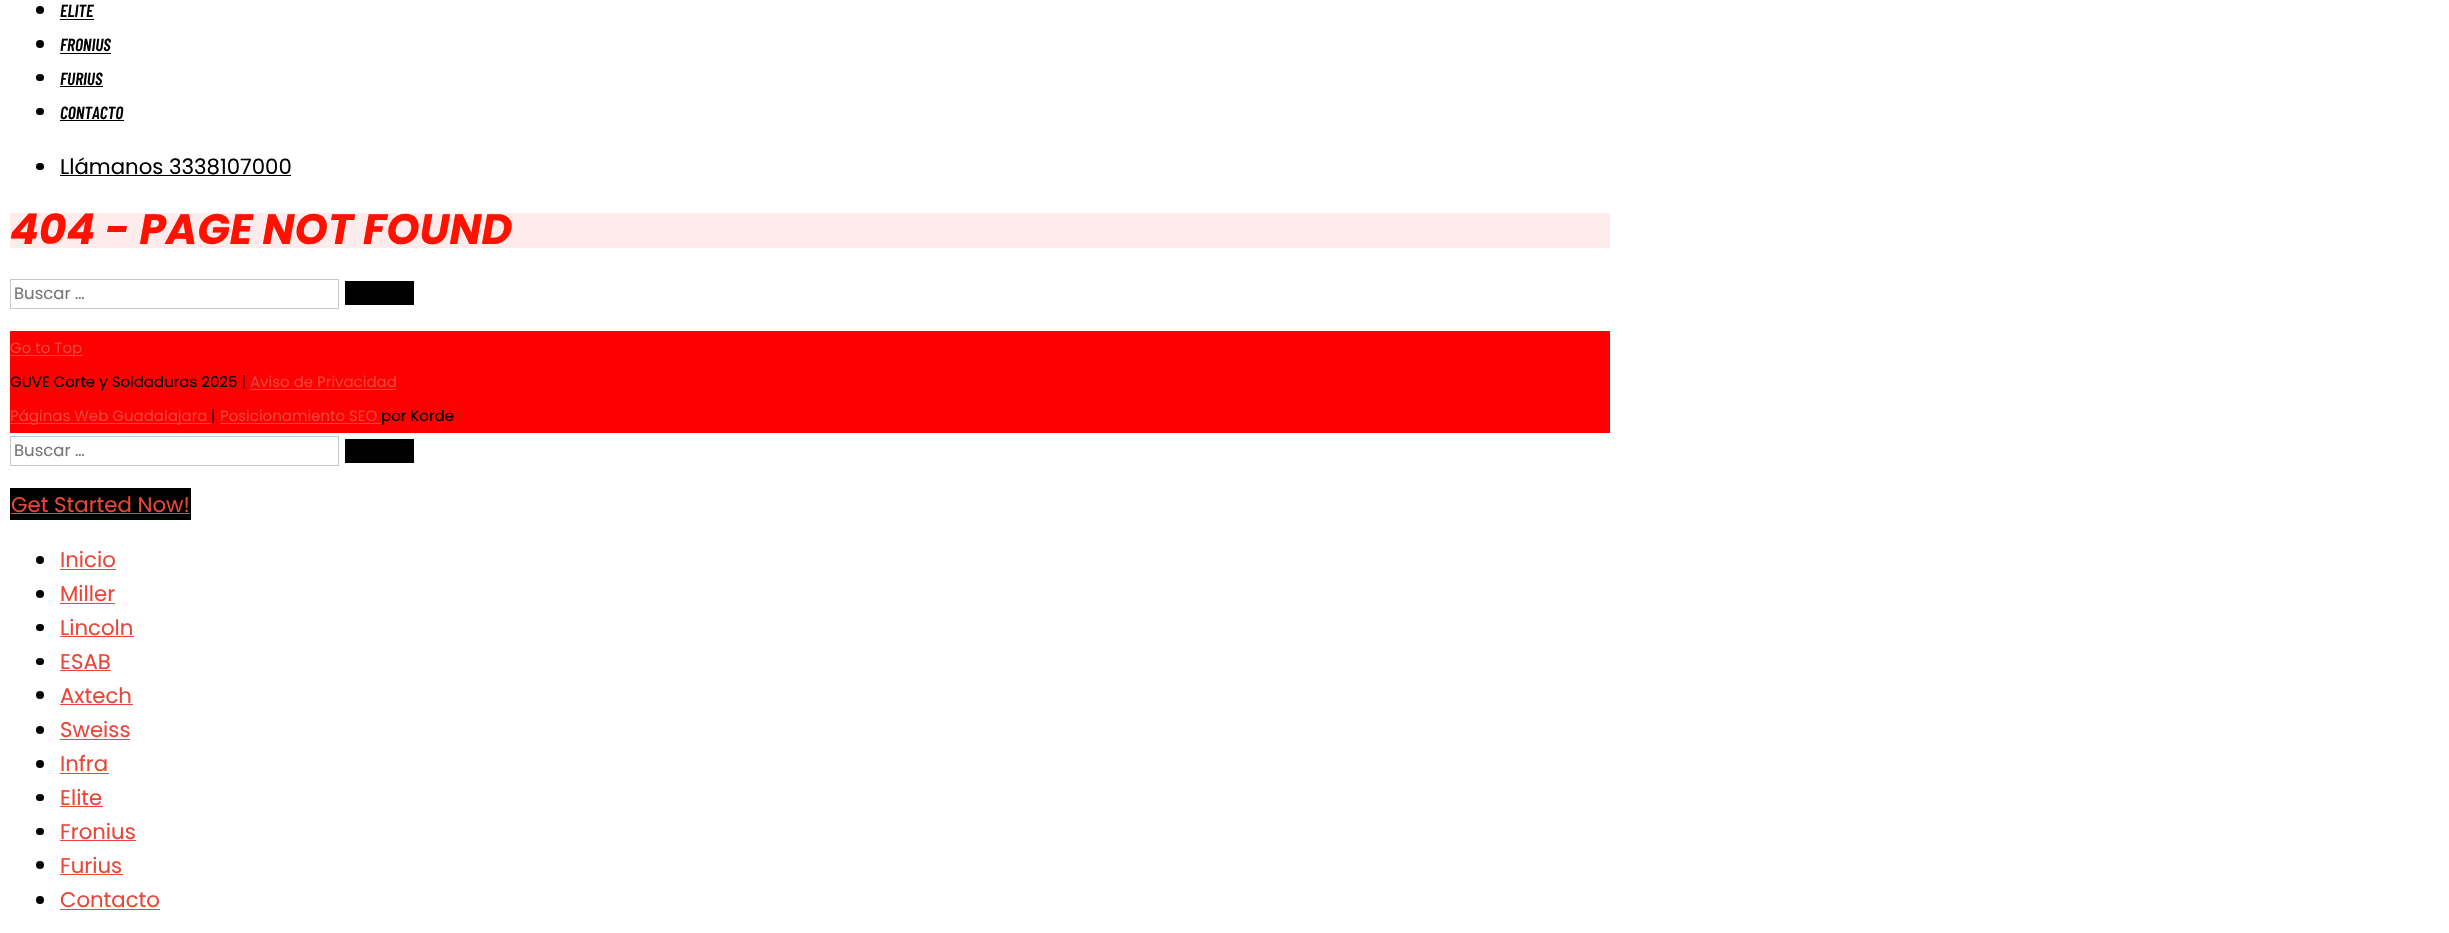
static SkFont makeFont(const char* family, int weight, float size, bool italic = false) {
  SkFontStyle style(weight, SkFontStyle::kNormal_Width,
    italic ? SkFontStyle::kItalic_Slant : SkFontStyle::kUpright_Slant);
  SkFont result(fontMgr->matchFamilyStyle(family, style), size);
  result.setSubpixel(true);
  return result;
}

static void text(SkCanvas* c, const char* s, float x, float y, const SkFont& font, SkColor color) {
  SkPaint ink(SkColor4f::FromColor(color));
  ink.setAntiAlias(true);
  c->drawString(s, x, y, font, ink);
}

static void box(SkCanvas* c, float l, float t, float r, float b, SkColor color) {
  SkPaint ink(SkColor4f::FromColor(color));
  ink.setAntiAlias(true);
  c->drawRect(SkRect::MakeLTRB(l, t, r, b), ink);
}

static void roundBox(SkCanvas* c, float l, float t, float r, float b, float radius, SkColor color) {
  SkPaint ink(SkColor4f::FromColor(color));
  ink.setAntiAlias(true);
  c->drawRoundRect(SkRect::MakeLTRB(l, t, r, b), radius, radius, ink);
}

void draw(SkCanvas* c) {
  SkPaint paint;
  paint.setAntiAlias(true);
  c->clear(0xffffffff);
  paint.setColor(0xff000000);
  c->drawCircle(40, 10, 4, paint);
  SkFont face1 = makeFont("Barlow Condensed", 600, 17.5f, true);
  text(c, "ELITE", 60, 17, face1, 0xff000000);
  box(c, 60, 19, 94, 20, 0xff000000);
  c->drawCircle(40, 44, 4, paint);
  text(c, "FRONIUS", 60, 51, face1, 0xff000000);
  box(c, 60, 53, 111, 54, 0xff000000);
  roundBox(c, 36, 74, 44, 81, 3.5f, 0xff000000);
  text(c, "FURIUS", 60, 85, face1, 0xff000000);
  box(c, 60, 86, 103, 87, 0xff000000);
  roundBox(c, 36, 108, 44, 115, 3.5f, 0xff000000);
  text(c, "CONTACTO", 60, 119, face1, 0xff000000);
  box(c, 60, 120, 124, 121, 0xff000000);
  roundBox(c, 36, 163, 44, 170, 3.5f, 0xff000000);
  SkFont face2 = makeFont("Poppins", 400, 21.25f);
  text(c, "Llámanos 3338107000", 60, 174, face2, 0xff000000);
  box(c, 60, 175, 291, 176, 0xff000000);
  box(c, 10, 213, 1610, 248, 0xfffdeceb);
  SkFont face3 = makeFont("Poppins", 700, 42.5f, true);
  text(c, "404 - PAGE NOT FOUND", 10, 244, face3, 0xffff1100);
  paint.setStyle(SkPaint::kStroke_Style);
  paint.setStrokeWidth(1);
  paint.setColor(0xffc0c9cf);
  c->drawRect(SkRect::MakeLTRB(10.5f, 279.5f, 338.5f, 308.5f), paint);
  SkFont face4 = makeFont("Poppins", 400, 16.5f);
  text(c, "Buscar …", 14, 299, face4, 0xff757575);
  box(c, 345, 281, 414, 305, 0xff000000);
  box(c, 10, 331, 1610, 433, 0xffff0000);
  box(c, 10, 355, 83, 356, 0xffeb4438);
  SkFont face5 = makeFont("Poppins", 400, 15);
  text(c, "Go to Top", 10, 353, face5, 0xffeb4438);
  text(c, "GUVE Corte y Soldaduras 2025 |", 10, 387, face5, 0xff000000);
  text(c, "Aviso de Privacidad", 250, 387, face5, 0xffeb4438);
  box(c, 250, 389, 396, 390, 0xffeb4438);
  box(c, 10, 423, 211, 424, 0xffeb4438);
  text(c, "Páginas Web Guadalajara", 10, 421, face5, 0xffeb4438);
  text(c, "|", 211, 421, face5, 0xff000000);
  text(c, "Posicionamiento SEO", 220, 421, face5, 0xffeb4438);
  box(c, 220, 423, 381, 424, 0xffeb4438);
  text(c, "por Korde", 381, 421, face5, 0xff000000);
  c->drawRect(SkRect::MakeLTRB(10.5f, 436.5f, 338.5f, 465.5f), paint);
  text(c, "Buscar …", 14, 456, face4, 0xff757575);
  box(c, 345, 439, 414, 463, 0xff000000);
  box(c, 10, 488, 191, 520, 0xff000000);
  text(c, "Get Started Now!", 11, 512, face2, 0xffeb4438);
  box(c, 11, 513, 190, 514, 0xffeb4438);
  paint.setStyle(SkPaint::kFill_Style);
  paint.setColor(0xff000000);
  c->drawCircle(40, 560, 4, paint);
  text(c, "Inicio", 60, 567, face2, 0xffeb4438);
  box(c, 60, 569, 116, 570, 0xffeb4438);
  c->drawCircle(40, 594, 4, paint);
  text(c, "Miller", 60, 601, face2, 0xffeb4438);
  box(c, 60, 603, 115, 604, 0xffeb4438);
  roundBox(c, 36, 624, 44, 631, 3.5f, 0xff000000);
  text(c, "Lincoln", 60, 635, face2, 0xffeb4438);
  box(c, 60, 636, 134, 637, 0xffeb4438);
  roundBox(c, 36, 658, 44, 665, 3.5f, 0xff000000);
  text(c, "ESAB", 60, 669, face2, 0xffeb4438);
  box(c, 60, 670, 111, 671, 0xffeb4438);
  c->drawCircle(40, 695, 4, paint);
  text(c, "Axtech", 60, 703, face2, 0xffeb4438);
  box(c, 60, 704, 133, 705, 0xffeb4438);
  c->drawCircle(40, 730, 4, paint);
  text(c, "Sweiss", 60, 737, face2, 0xffeb4438);
  box(c, 60, 739, 130, 740, 0xffeb4438);
  c->drawCircle(40, 764, 4, paint);
  text(c, "Infra", 60, 771, face2, 0xffeb4438);
  box(c, 60, 773, 109, 774, 0xffeb4438);
  roundBox(c, 36, 794, 44, 801, 3.5f, 0xff000000);
  text(c, "Elite", 60, 805, face2, 0xffeb4438);
  box(c, 60, 806, 103, 807, 0xffeb4438);
  roundBox(c, 36, 828, 44, 835, 3.5f, 0xff000000);
  text(c, "Fronius", 60, 839, face2, 0xffeb4438);
  box(c, 60, 840, 136, 841, 0xffeb4438);
  c->drawCircle(40, 865, 4, paint);
  text(c, "Furius", 60, 873, face2, 0xffeb4438);
  box(c, 60, 874, 123, 875, 0xffeb4438);
  c->drawCircle(40, 900, 4, paint);
  text(c, "Contacto", 60, 907, face2, 0xffeb4438);
  box(c, 60, 909, 160, 910, 0xffeb4438);
}
